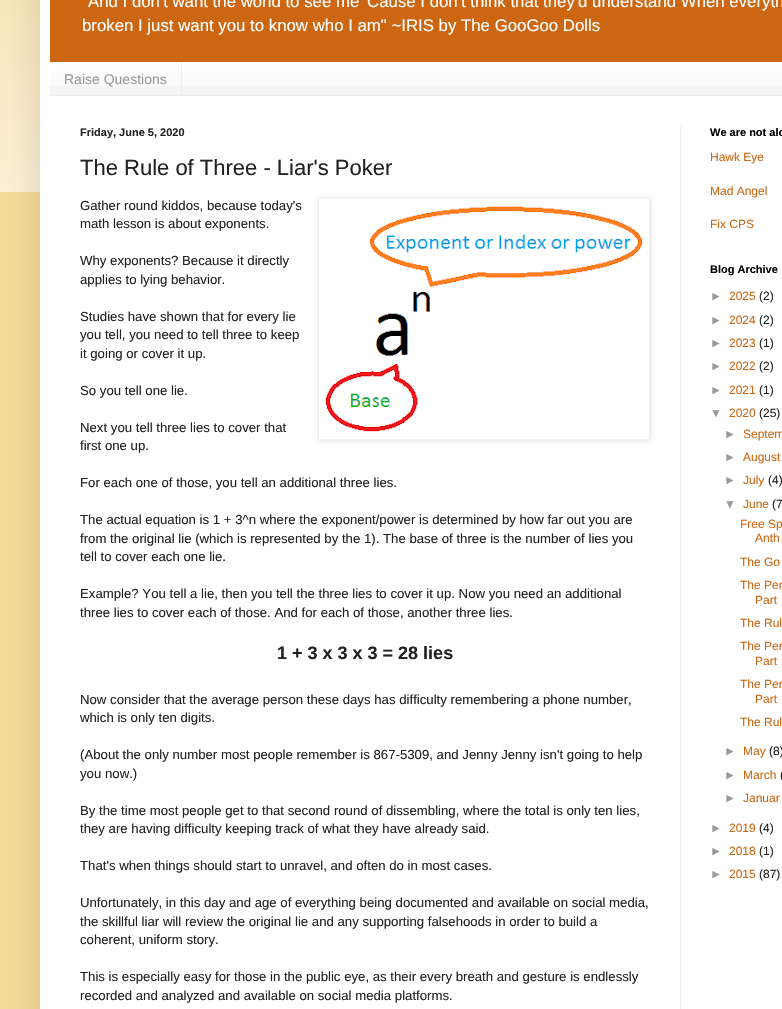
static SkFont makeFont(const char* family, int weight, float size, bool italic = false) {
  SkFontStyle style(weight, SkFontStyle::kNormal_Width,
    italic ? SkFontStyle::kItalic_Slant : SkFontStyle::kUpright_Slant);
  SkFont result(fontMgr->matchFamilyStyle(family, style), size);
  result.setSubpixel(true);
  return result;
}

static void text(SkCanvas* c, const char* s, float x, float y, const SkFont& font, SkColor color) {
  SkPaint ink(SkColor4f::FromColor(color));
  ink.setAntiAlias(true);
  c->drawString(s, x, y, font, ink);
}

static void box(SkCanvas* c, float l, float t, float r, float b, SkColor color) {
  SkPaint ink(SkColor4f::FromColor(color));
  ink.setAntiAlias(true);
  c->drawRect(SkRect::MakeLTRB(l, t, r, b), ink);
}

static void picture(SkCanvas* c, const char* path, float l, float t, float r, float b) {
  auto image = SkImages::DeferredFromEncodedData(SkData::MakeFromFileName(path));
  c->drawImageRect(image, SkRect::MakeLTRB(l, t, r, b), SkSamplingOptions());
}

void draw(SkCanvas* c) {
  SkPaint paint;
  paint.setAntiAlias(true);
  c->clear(0xfff9dc99);
  picture(c, "img_01.png", 0, 0, 40, 192);
  paint.setColor(0x26000000);
  paint.setMaskFilter(SkMaskFilter::MakeBlur(kNormal_SkBlurStyle, 20));
  c->drawRect(SkRect::MakeLTRB(40, -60, 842, 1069), paint);
  paint.setMaskFilter(nullptr);
  box(c, 40, 0, 782, 1009, 0xffffffff);
  box(c, 50, 0, 782, 62, 0xffcc6611);
  SkFont face1 = makeFont("Liberation Sans", 400, 16.8f);
  text(c, "And I don't want the world to see me 'Cause I don't think that they'd understand When everyth", 88, 7, face1, 0xffffffff);
  text(c, "broken I just want you to know who I am\" ~IRIS by The GooGoo Dolls", 82, 31, face1, 0xffffffff);
  box(c, 50, 63, 782, 95, 0xfff5f5f5);
  picture(c, "img_02.png", 50, 62, 782, 86);
  box(c, 50, 95, 782, 96, 0xffeeeeee);
  box(c, 181, 62, 182, 95, 0xffeeeeee);
  SkFont face2 = makeFont("Liberation Sans", 400, 14);
  text(c, "Raise Questions", 64, 84, face2, 0xff999999);
  box(c, 680, 126, 681, 1009, 0xffeeeeee);
  SkFont face3 = makeFont("Liberation Sans", 700, 11);
  text(c, "Friday, June 5, 2020", 80, 136, face3, 0xff222222);
  SkFont face4 = makeFont("Liberation Sans", 400, 22);
  text(c, "The Rule of Three - Liar's Poker", 80, 175, face4, 0xff222222);
  SkFont face5 = makeFont("Liberation Sans", 400, 13.2f);
  text(c, "Gather round kiddos, because today's", 80, 210, face5, 0xff222222);
  c->save();
  c->clipPath(SkPathBuilder(SkPathFillType::kEvenOdd).moveTo(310, 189).lineTo(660, 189).lineTo(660, 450).lineTo(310, 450).close().moveTo(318, 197).lineTo(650, 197).lineTo(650, 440).lineTo(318, 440).close().detach(), true);
  paint.setColor(0x1a000000);
  paint.setMaskFilter(SkMaskFilter::MakeBlur(kNormal_SkBlurStyle, 2.5f));
  c->drawRect(SkRect::MakeLTRB(319, 198, 651, 441), paint);
  paint.setMaskFilter(nullptr);
  c->restore();
  paint.setStyle(SkPaint::kStroke_Style);
  paint.setStrokeWidth(1);
  paint.setColor(0xffeeeeee);
  c->drawRect(SkRect::MakeLTRB(318.5f, 197.5f, 649.5f, 439.5f), paint);
  picture(c, "img_03.png", 325, 206, 643, 432);
  text(c, "math lesson is about exponents.", 80, 228, face5, 0xff222222);
  text(c, "Why exponents? Because it directly", 80, 265, face5, 0xff222222);
  text(c, "applies to lying behavior.", 80, 284, face5, 0xff222222);
  text(c, "Studies have shown that for every lie", 80, 321, face5, 0xff222222);
  text(c, "you tell, you need to tell three to keep", 80, 339, face5, 0xff222222);
  text(c, "it going or cover it up.", 80, 358, face5, 0xff222222);
  text(c, "So you tell one lie.", 80, 395, face5, 0xff222222);
  text(c, "Next you tell three lies to cover that", 80, 432, face5, 0xff222222);
  text(c, "first one up.", 80, 450, face5, 0xff222222);
  text(c, "For each one of those, you tell an additional three lies.", 80, 487, face5, 0xff222222);
  text(c, "The actual equation is 1 + 3^n where the exponent/power is determined by how far out you are", 80, 524, face5, 0xff222222);
  text(c, "from the original lie (which is represented by the 1). The base of three is the number of lies you", 80, 543, face5, 0xff222222);
  text(c, "tell to cover each one lie.", 80, 561, face5, 0xff222222);
  text(c, "Example? You tell a lie, then you tell the three lies to cover it up. Now you need an additional", 80, 598, face5, 0xff222222);
  text(c, "three lies to cover each of those. And for each of those, another three lies.", 80, 617, face5, 0xff222222);
  SkFont face6 = makeFont("Liberation Sans", 700, 18);
  text(c, "1 + 3 x 3 x 3 = 28 lies", 277, 659, face6, 0xff222222);
  text(c, "Now consider that the average person these days has difficulty remembering a phone number,", 80, 704, face5, 0xff222222);
  text(c, "which is only ten digits.", 80, 722, face5, 0xff222222);
  text(c, "(About the only number most people remember is 867-5309, and Jenny Jenny isn't going to help", 80, 759, face5, 0xff222222);
  text(c, "you now.)", 80, 778, face5, 0xff222222);
  text(c, "By the time most people get to that second round of dissembling, where the total is only ten lies,", 80, 815, face5, 0xff222222);
  text(c, "they are having difficulty keeping track of what they have already said.", 80, 833, face5, 0xff222222);
  text(c, "That's when things should start to unravel, and often do in most cases.", 80, 870, face5, 0xff222222);
  text(c, "Unfortunately, in this day and age of everything being documented and available on social media,", 80, 907, face5, 0xff222222);
  text(c, "the skillful liar will review the original lie and any supporting falsehoods in order to build a", 80, 926, face5, 0xff222222);
  text(c, "coherent, uniform story.", 80, 944, face5, 0xff222222);
  text(c, "This is especially easy for those in the public eye, as their every breath and gesture is endlessly", 80, 981, face5, 0xff222222);
  text(c, "recorded and analyzed and available on social media platforms.", 80, 1000, face5, 0xff222222);
  text(c, "We are not alo", 710, 136, face3, 0xff000000);
  SkFont face7 = makeFont("Liberation Sans", 400, 12);
  text(c, "Hawk Eye", 710, 161, face7, 0xffcc6611);
  text(c, "Mad Angel", 710, 195, face7, 0xffcc6611);
  text(c, "Fix CPS", 710, 228, face7, 0xffcc6611);
  text(c, "Blog Archive", 710, 273, face3, 0xff000000);
  text(c, "►", 710, 300, face7, 0xff999999);
  text(c, "2025", 729, 300, face7, 0xffcc6611);
  text(c, "(2)", 759, 300, face7, 0xff222222);
  text(c, "►", 710, 324, face7, 0xff999999);
  text(c, "2024", 729, 324, face7, 0xffcc6611);
  text(c, "(2)", 759, 324, face7, 0xff222222);
  text(c, "►", 710, 347, face7, 0xff999999);
  text(c, "2023", 729, 347, face7, 0xffcc6611);
  text(c, "(1)", 759, 347, face7, 0xff222222);
  text(c, "►", 710, 370, face7, 0xff999999);
  text(c, "2022", 729, 370, face7, 0xffcc6611);
  text(c, "(2)", 759, 370, face7, 0xff222222);
  text(c, "►", 710, 394, face7, 0xff999999);
  text(c, "2021", 729, 394, face7, 0xffcc6611);
  text(c, "(1)", 759, 394, face7, 0xff222222);
  text(c, "▼", 710, 417, face7, 0xff999999);
  text(c, "2020", 729, 417, face7, 0xffcc6611);
  text(c, "(25)", 759, 417, face7, 0xff222222);
  text(c, "►", 724, 438, face7, 0xff999999);
  text(c, "Septem", 743, 438, face7, 0xffcc6611);
  text(c, "►", 724, 461, face7, 0xff999999);
  text(c, "August", 743, 461, face7, 0xffcc6611);
  text(c, "►", 724, 484, face7, 0xff999999);
  text(c, "July", 743, 484, face7, 0xffcc6611);
  text(c, "(4)", 768, 484, face7, 0xff222222);
  text(c, "▼", 724, 508, face7, 0xff999999);
  text(c, "June", 743, 508, face7, 0xffcc6611);
  text(c, "(7", 772, 508, face7, 0xff222222);
  text(c, "Free Sp", 740, 528, face7, 0xffcc6611);
  text(c, "Anth", 755, 542, face7, 0xffcc6611);
  text(c, "The Go", 740, 566, face7, 0xffcc6611);
  text(c, "The Pen", 740, 589, face7, 0xffcc6611);
  text(c, "Part", 755, 604, face7, 0xffcc6611);
  text(c, "The Rul", 740, 627, face7, 0xffcc6611);
  text(c, "The Pen", 740, 650, face7, 0xffcc6611);
  text(c, "Part", 755, 665, face7, 0xffcc6611);
  text(c, "The Pen", 740, 688, face7, 0xffcc6611);
  text(c, "Part", 755, 703, face7, 0xffcc6611);
  text(c, "The Rul", 740, 726, face7, 0xffcc6611);
  text(c, "►", 724, 755, face7, 0xff999999);
  text(c, "May", 743, 755, face7, 0xffcc6611);
  text(c, "(8)", 769, 755, face7, 0xff222222);
  text(c, "►", 724, 779, face7, 0xff999999);
  text(c, "March", 743, 779, face7, 0xffcc6611);
  text(c, "(", 780, 779, face7, 0xff222222);
  text(c, "►", 724, 802, face7, 0xff999999);
  text(c, "Januar", 743, 802, face7, 0xffcc6611);
  text(c, "►", 710, 832, face7, 0xff999999);
  text(c, "2019", 729, 832, face7, 0xffcc6611);
  text(c, "(4)", 759, 832, face7, 0xff222222);
  text(c, "►", 710, 855, face7, 0xff999999);
  text(c, "2018", 729, 855, face7, 0xffcc6611);
  text(c, "(1)", 759, 855, face7, 0xff222222);
  text(c, "►", 710, 878, face7, 0xff999999);
  text(c, "2015", 729, 878, face7, 0xffcc6611);
  text(c, "(87)", 759, 878, face7, 0xff222222);
}
